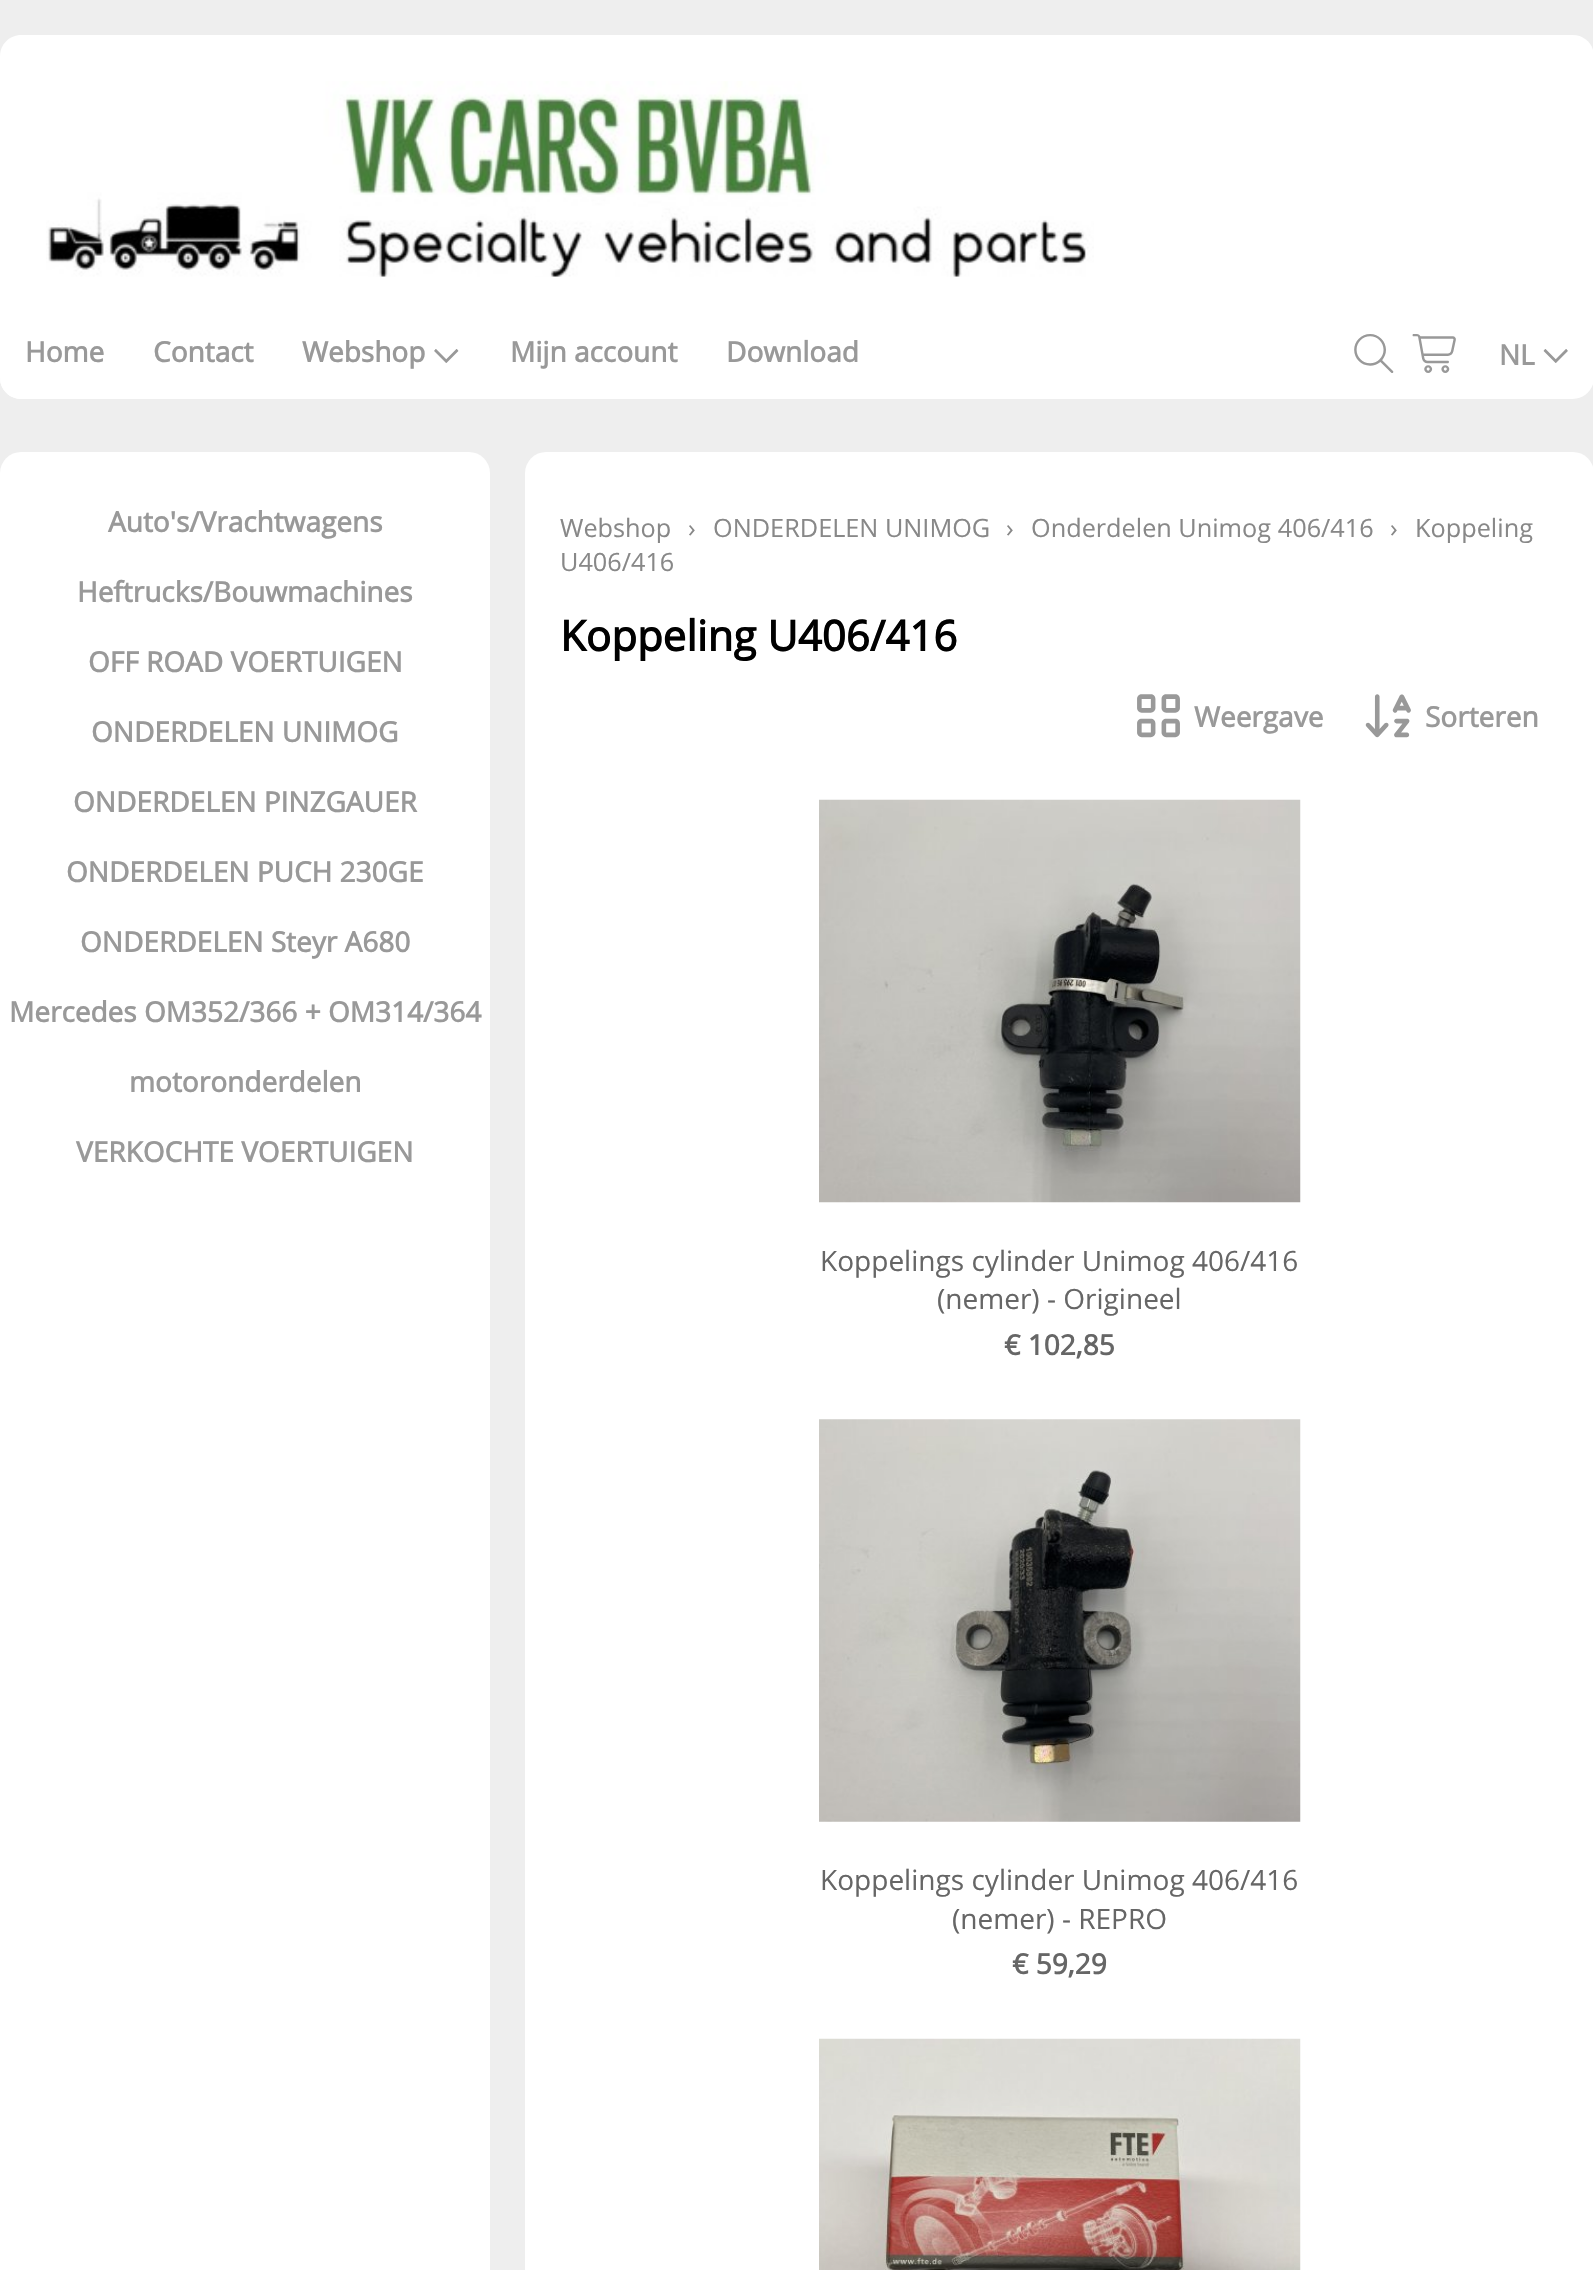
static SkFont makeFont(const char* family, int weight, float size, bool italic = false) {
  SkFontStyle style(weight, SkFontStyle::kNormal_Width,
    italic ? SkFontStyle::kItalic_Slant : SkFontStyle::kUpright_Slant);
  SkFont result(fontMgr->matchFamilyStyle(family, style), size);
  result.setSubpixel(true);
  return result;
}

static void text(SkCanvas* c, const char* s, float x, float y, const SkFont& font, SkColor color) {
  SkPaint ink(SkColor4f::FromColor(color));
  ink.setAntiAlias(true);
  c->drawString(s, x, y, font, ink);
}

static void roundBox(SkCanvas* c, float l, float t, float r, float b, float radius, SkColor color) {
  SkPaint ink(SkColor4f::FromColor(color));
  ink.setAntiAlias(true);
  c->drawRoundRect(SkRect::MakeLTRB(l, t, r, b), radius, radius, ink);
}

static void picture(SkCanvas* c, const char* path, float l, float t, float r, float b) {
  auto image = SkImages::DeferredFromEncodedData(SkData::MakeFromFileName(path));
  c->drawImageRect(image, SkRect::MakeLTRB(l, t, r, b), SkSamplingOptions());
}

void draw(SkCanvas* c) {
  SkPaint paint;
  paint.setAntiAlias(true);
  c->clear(0xffeeeeee);
  paint.setColor(0xffffffff);
  c->drawPath(SkPathBuilder().moveTo(21, 35).lineTo(1573, 35).cubicTo(1584.5f, 35, 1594, 44.5f, 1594, 56).lineTo(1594, 308).lineTo(0, 308).lineTo(0, 56).cubicTo(0, 44.5f, 9.5f, 35, 21, 35).close().detach(), paint);
  picture(c, "img_01.png", 46, 81, 1094, 277);
  c->drawPath(SkPathBuilder().moveTo(0, 308).lineTo(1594, 308).lineTo(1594, 378).cubicTo(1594, 389.5f, 1584.5f, 399, 1573, 399).lineTo(21, 399).cubicTo(9.5f, 399, 0, 389.5f, 0, 378).close().detach(), paint);
  c->drawPath(SkPathBuilder().moveTo(0, 308).lineTo(1349, 308).lineTo(1349, 378).cubicTo(1349, 389.5f, 1339.5f, 399, 1328, 399).lineTo(21, 399).cubicTo(9.5f, 399, 0, 389.5f, 0, 378).close().detach(), paint);
  SkFont face1 = makeFont("Open Sans", 700, 28);
  text(c, "Home", 25, 362, face1, 0xff999999);
  text(c, "Contact", 153, 362, face1, 0xff999999);
  text(c, "Webshop", 302, 362, face1, 0xff999999);
  picture(c, "img_02.png", 434, 349, 459, 363);
  text(c, "Mijn account", 510, 362, face1, 0xff999999);
  text(c, "Download", 726, 362, face1, 0xff999999);
  picture(c, "img_03.png", 1354, 334, 1394, 373);
  picture(c, "img_04.png", 1412, 334, 1456, 373);
  text(c, "NL", 1499, 365, face1, 0xff999999);
  picture(c, "img_05.png", 1543, 349, 1568, 363);
  roundBox(c, 0, 452, 490, 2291, 21, 0xffffffff);
  text(c, "Auto's/Vrachtwagens", 108, 532, face1, 0xff999999);
  text(c, "Heftrucks/Bouwmachines", 77, 602, face1, 0xff999999);
  text(c, "OFF ROAD VOERTUIGEN", 88, 672, face1, 0xff999999);
  text(c, "ONDERDELEN UNIMOG", 91, 742, face1, 0xff999999);
  text(c, "ONDERDELEN PINZGAUER", 73, 812, face1, 0xff999999);
  text(c, "ONDERDELEN PUCH 230GE", 66, 882, face1, 0xff999999);
  text(c, "ONDERDELEN Steyr A680", 80, 952, face1, 0xff999999);
  text(c, "Mercedes OM352/366 + OM314/364", 9, 1022, face1, 0xff999999);
  text(c, "motoronderdelen", 129, 1092, face1, 0xff999999);
  text(c, "VERKOCHTE VOERTUIGEN", 76, 1162, face1, 0xff999999);
  roundBox(c, 525, 452, 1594, 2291, 21, 0xffffffff);
  SkFont face2 = makeFont("Open Sans", 400, 25.25f);
  text(c, "Webshop", 560, 537, face2, 0xff888888);
  text(c, "›", 688, 537, face2, 0xff888888);
  text(c, "ONDERDELEN UNIMOG", 713, 537, face2, 0xff888888);
  text(c, "›", 1006, 537, face2, 0xff888888);
  text(c, "Onderdelen Unimog 406/416", 1031, 537, face2, 0xff888888);
  text(c, "›", 1390, 537, face2, 0xff888888);
  text(c, "Koppeling", 1415, 537, face2, 0xff888888);
  text(c, "U406/416", 560, 571, face2, 0xff888888);
  SkFont face3 = makeFont("Open Sans", 700, 42);
  text(c, "Koppeling U406/416", 560, 651, face3, 0xff000000);
  picture(c, "img_06.png", 1137, 694, 1180, 738);
  text(c, "Weergave", 1194, 727, face1, 0xff999999);
  picture(c, "img_07.png", 1365, 694, 1411, 738);
  text(c, "Sorteren", 1425, 727, face1, 0xff999999);
  picture(c, "img_08.png", 819, 799, 1301, 1203);
  SkFont face4 = makeFont("Open Sans", 400, 28);
  text(c, "Koppelings cylinder Unimog 406/416", 820, 1271, face4, 0xff666666);
  text(c, "(nemer) - Origineel", 937, 1309, face4, 0xff666666);
  text(c, "€ 102,85", 1004, 1355, face1, 0xff666666);
  picture(c, "img_09.png", 819, 1419, 1301, 1822);
  text(c, "Koppelings cylinder Unimog 406/416", 820, 1890, face4, 0xff666666);
  text(c, "(nemer) - REPRO", 952, 1929, face4, 0xff666666);
  text(c, "€ 59,29", 1012, 1974, face1, 0xff666666);
  picture(c, "img_10.png", 819, 2038, 1301, 2270);
}
